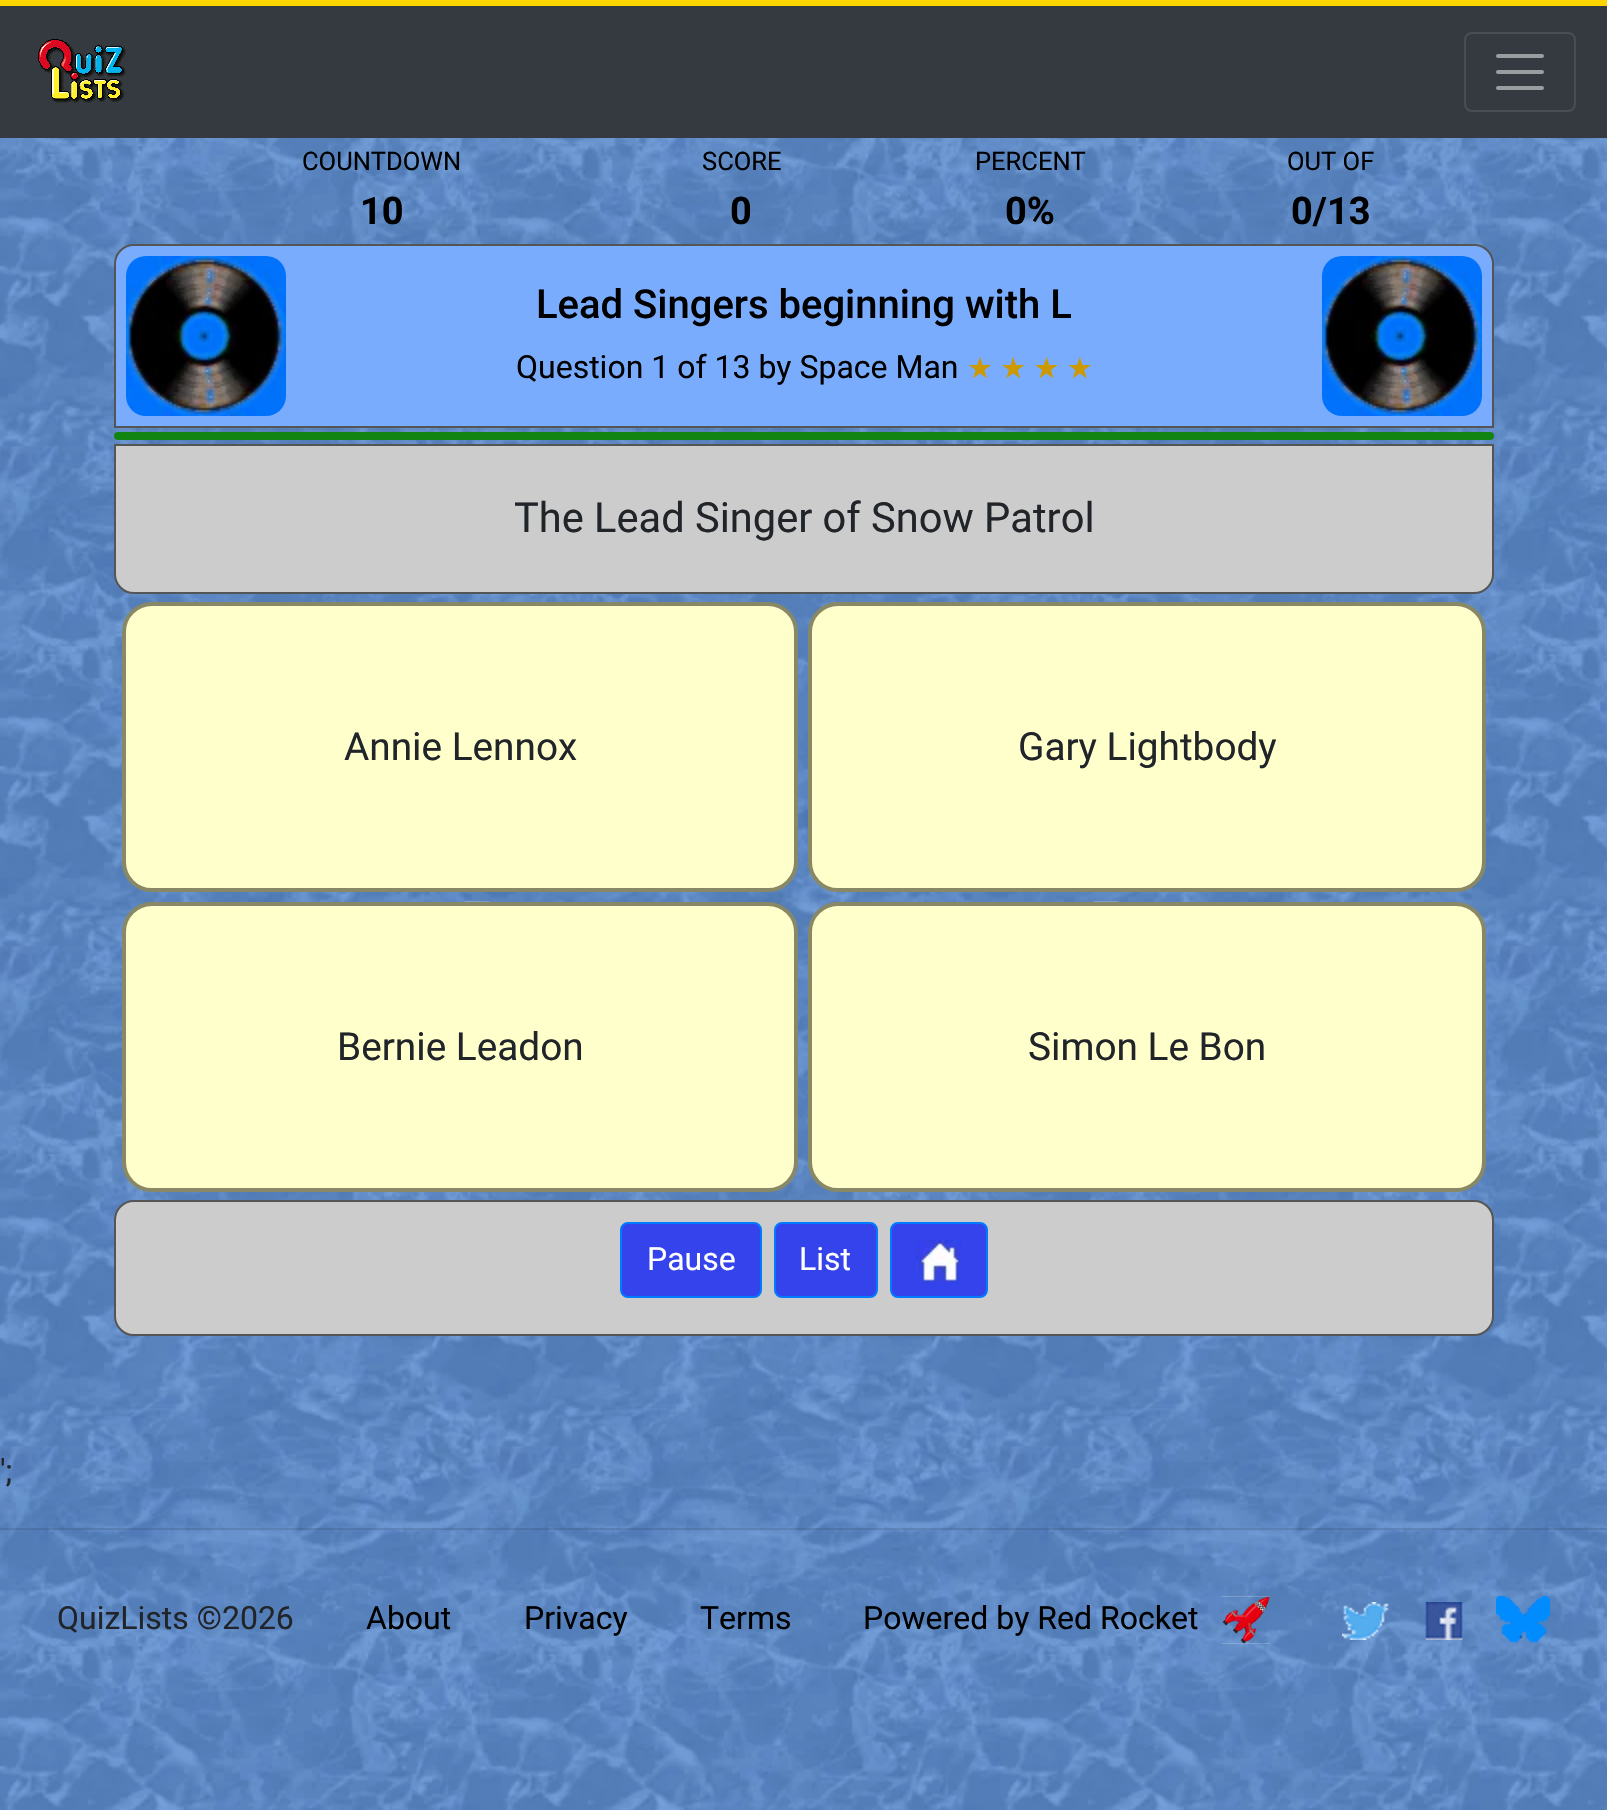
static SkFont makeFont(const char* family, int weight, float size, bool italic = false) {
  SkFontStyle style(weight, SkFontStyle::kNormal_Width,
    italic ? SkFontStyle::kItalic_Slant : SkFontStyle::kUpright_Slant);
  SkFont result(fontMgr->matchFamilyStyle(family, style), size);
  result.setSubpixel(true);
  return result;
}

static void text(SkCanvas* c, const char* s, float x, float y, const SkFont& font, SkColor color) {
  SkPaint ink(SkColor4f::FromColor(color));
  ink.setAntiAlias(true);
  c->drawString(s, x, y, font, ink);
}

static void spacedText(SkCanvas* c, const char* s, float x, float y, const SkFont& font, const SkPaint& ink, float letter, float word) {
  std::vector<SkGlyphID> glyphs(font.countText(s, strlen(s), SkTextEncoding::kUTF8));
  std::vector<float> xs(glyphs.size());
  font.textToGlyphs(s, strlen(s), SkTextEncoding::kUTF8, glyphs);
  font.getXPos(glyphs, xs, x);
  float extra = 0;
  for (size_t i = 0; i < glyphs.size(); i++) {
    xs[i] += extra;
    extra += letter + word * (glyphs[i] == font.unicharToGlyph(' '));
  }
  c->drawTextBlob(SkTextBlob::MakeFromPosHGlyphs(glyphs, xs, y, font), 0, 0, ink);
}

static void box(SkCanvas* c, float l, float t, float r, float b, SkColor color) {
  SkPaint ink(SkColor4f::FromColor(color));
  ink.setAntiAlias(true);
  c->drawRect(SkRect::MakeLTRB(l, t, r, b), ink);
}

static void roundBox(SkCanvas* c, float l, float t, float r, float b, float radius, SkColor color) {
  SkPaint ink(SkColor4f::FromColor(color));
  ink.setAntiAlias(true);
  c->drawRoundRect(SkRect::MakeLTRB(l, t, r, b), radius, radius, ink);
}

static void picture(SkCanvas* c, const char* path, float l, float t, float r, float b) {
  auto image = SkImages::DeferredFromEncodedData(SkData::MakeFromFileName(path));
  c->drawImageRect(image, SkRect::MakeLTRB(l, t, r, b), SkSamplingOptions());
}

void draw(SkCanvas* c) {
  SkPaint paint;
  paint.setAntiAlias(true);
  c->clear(0xffffffff);
  picture(c, "img_01.png", 0, 138, 1607, 1810);
  box(c, 0, 0, 1607, 6, 0xffffd500);
  box(c, 0, 6, 1607, 138, 0xff343a40);
  picture(c, "img_02.png", 38, 39, 126, 103);
  paint.setStyle(SkPaint::kStroke_Style);
  paint.setStrokeWidth(2);
  paint.setColor(0xff484e53);
  c->drawRoundRect(SkRect::MakeLTRB(1465, 33, 1575, 111), 7, 7, paint);
  paint.setStrokeWidth(4);
  paint.setStrokeCap(SkPaint::kRound_Cap);
  paint.setColor(0xff9a9da0);
  c->drawPath(SkPathBuilder().moveTo(1498, 56).lineTo(1542, 56).moveTo(1498, 72).lineTo(1542, 72).moveTo(1498, 88).lineTo(1542, 88).detach(), paint);
  SkFont face1 = makeFont("Roboto", 400, 25.5f);
  text(c, "COUNTDOWN", 302, 170, face1, 0xff000000);
  text(c, "SCORE", 702, 170, face1, 0xff000000);
  text(c, "PERCENT", 975, 170, face1, 0xff000000);
  text(c, "OUT OF", 1287, 170, face1, 0xff000000);
  SkFont face2 = makeFont("Roboto", 700, 38);
  text(c, "10", 360, 224, face2, 0xff000000);
  text(c, "0", 730, 224, face2, 0xff000000);
  text(c, "0%", 1005, 224, face2, 0xff000000);
  text(c, "0/13", 1291, 224, face2, 0xff000000);
  paint.setStyle(SkPaint::kFill_Style);
  paint.setColor(0xff7aacfe);
  c->drawPath(SkPathBuilder().moveTo(134, 245).lineTo(1474, 245).cubicTo(1484.5f, 245, 1493, 253.5f, 1493, 264).lineTo(1493, 427).lineTo(115, 427).lineTo(115, 264).cubicTo(115, 253.5f, 123.5f, 245, 134, 245).close().detach(), paint);
  paint.setStyle(SkPaint::kStroke_Style);
  paint.setStrokeWidth(2);
  paint.setStrokeCap(SkPaint::kButt_Cap);
  paint.setColor(0xff555555);
  c->drawPath(SkPathBuilder().moveTo(134, 245).lineTo(1474, 245).cubicTo(1484.5f, 245, 1493, 253.5f, 1493, 264).lineTo(1493, 427).lineTo(115, 427).lineTo(115, 264).cubicTo(115, 253.5f, 123.5f, 245, 134, 245).close().detach(), paint);
  roundBox(c, 116, 246, 1492, 426, 20, 0xff7aacfe);
  picture(c, "img_03.png", 126, 256, 286, 416);
  SkFont face3 = makeFont("Roboto", 500, 40);
  text(c, "Lead Singers beginning with L", 536, 318, face3, 0xff000000);
  SkFont face4 = makeFont("Roboto", 400, 32);
  text(c, "Question 1 of 13 by Space Man", 516, 378, face4, 0xff000000);
  SkFont face5 = makeFont("DejaVu Sans", 400, 29);
  paint.setStyle(SkPaint::kFill_Style);
  paint.setColor(0xffcc9900);
  spacedText(c, "★ ★ ★ ★", 967, 378, face5, paint, 0, -2);
  picture(c, "img_04.png", 1322, 256, 1482, 416);
  roundBox(c, 114, 432, 1494, 440, 4, 0xff128412);
  paint.setColor(0xffcccccc);
  c->drawPath(SkPathBuilder().moveTo(115, 445).lineTo(1493, 445).lineTo(1493, 574).cubicTo(1493, 584.5f, 1484.5f, 593, 1474, 593).lineTo(134, 593).cubicTo(123.5f, 593, 115, 584.5f, 115, 574).close().detach(), paint);
  paint.setStyle(SkPaint::kStroke_Style);
  paint.setColor(0xff555555);
  c->drawPath(SkPathBuilder().moveTo(115, 445).lineTo(1493, 445).lineTo(1493, 574).cubicTo(1493, 584.5f, 1484.5f, 593, 1474, 593).lineTo(134, 593).cubicTo(123.5f, 593, 115, 584.5f, 115, 574).close().detach(), paint);
  SkFont face6 = makeFont("Roboto", 400, 41.6f);
  text(c, "The Lead Singer of Snow Patrol", 514, 532, face6, 0xff212529);
  picture(c, "img_05.png", 463, 901, 1120, 902);
  paint.setStyle(SkPaint::kFill_Style);
  paint.setColor(0xffffffcc);
  c->drawRoundRect(SkRect::MakeLTRB(124, 604, 796, 890), 28, 28, paint);
  paint.setStyle(SkPaint::kStroke_Style);
  paint.setStrokeWidth(4);
  paint.setColor(0xff888866);
  c->drawRoundRect(SkRect::MakeLTRB(124, 604, 796, 890), 28, 28, paint);
  SkFont face7 = makeFont("Roboto", 400, 38.75f);
  text(c, "Annie Lennox", 344, 760, face7, 0xff212529);
  paint.setStyle(SkPaint::kFill_Style);
  paint.setColor(0xffffffcc);
  c->drawRoundRect(SkRect::MakeLTRB(810, 604, 1484, 890), 28, 28, paint);
  paint.setStyle(SkPaint::kStroke_Style);
  paint.setColor(0xff888866);
  c->drawRoundRect(SkRect::MakeLTRB(810, 604, 1484, 890), 28, 28, paint);
  text(c, "Gary Lightbody", 1018, 760, face7, 0xff212529);
  paint.setStyle(SkPaint::kFill_Style);
  paint.setColor(0xffffffcc);
  c->drawRoundRect(SkRect::MakeLTRB(124, 904, 796, 1190), 28, 28, paint);
  paint.setStyle(SkPaint::kStroke_Style);
  paint.setColor(0xff888866);
  c->drawRoundRect(SkRect::MakeLTRB(124, 904, 796, 1190), 28, 28, paint);
  text(c, "Bernie Leadon", 337, 1060, face7, 0xff212529);
  paint.setStyle(SkPaint::kFill_Style);
  paint.setColor(0xffffffcc);
  c->drawRoundRect(SkRect::MakeLTRB(810, 904, 1484, 1190), 28, 28, paint);
  paint.setStyle(SkPaint::kStroke_Style);
  paint.setColor(0xff888866);
  c->drawRoundRect(SkRect::MakeLTRB(810, 904, 1484, 1190), 28, 28, paint);
  text(c, "Simon Le Bon", 1028, 1060, face7, 0xff212529);
  paint.setStyle(SkPaint::kFill_Style);
  paint.setColor(0xffcccccc);
  c->drawRoundRect(SkRect::MakeLTRB(115, 1201, 1493, 1335), 19, 19, paint);
  paint.setStyle(SkPaint::kStroke_Style);
  paint.setStrokeWidth(2);
  paint.setColor(0xff555555);
  c->drawRoundRect(SkRect::MakeLTRB(115, 1201, 1493, 1335), 19, 19, paint);
  paint.setStyle(SkPaint::kFill_Style);
  paint.setColor(0xff3443eb);
  c->drawRoundRect(SkRect::MakeLTRB(621, 1223, 761, 1297), 7, 7, paint);
  paint.setStyle(SkPaint::kStroke_Style);
  paint.setColor(0xff007bff);
  c->drawRoundRect(SkRect::MakeLTRB(621, 1223, 761, 1297), 7, 7, paint);
  text(c, "Pause", 647, 1270, face4, 0xffffffff);
  paint.setStyle(SkPaint::kFill_Style);
  paint.setColor(0xff3443eb);
  c->drawRoundRect(SkRect::MakeLTRB(775, 1223, 877, 1297), 7, 7, paint);
  paint.setStyle(SkPaint::kStroke_Style);
  paint.setColor(0xff007bff);
  c->drawRoundRect(SkRect::MakeLTRB(775, 1223, 877, 1297), 7, 7, paint);
  text(c, "List", 799, 1270, face4, 0xffffffff);
  paint.setStyle(SkPaint::kFill_Style);
  paint.setColor(0xff3443eb);
  c->drawRoundRect(SkRect::MakeLTRB(891, 1223, 987, 1297), 7, 7, paint);
  paint.setStyle(SkPaint::kStroke_Style);
  paint.setColor(0xff007bff);
  c->drawRoundRect(SkRect::MakeLTRB(891, 1223, 987, 1297), 7, 7, paint);
  picture(c, "img_06.png", 916, 1240, 962, 1284);
  text(c, "';", 0, 1482, face4, 0xff212529);
  box(c, 0, 1528, 1607, 1530, 0x1a000000);
  text(c, "QuizLists ©2026", 57, 1629, face4, 0xff212529);
  text(c, "About", 366, 1629, face4, 0xff000000);
  text(c, "Privacy", 524, 1629, face4, 0xff000000);
  text(c, "Terms", 700, 1629, face4, 0xff000000);
  text(c, "Powered by Red Rocket", 863, 1629, face4, 0xff000000);
  picture(c, "img_07.png", 1222, 1596, 1270, 1644);
  picture(c, "img_08.png", 1342, 1602, 1389, 1640);
  picture(c, "img_09.png", 1425, 1602, 1463, 1640);
  picture(c, "img_10.png", 1496, 1596, 1550, 1643);
}
